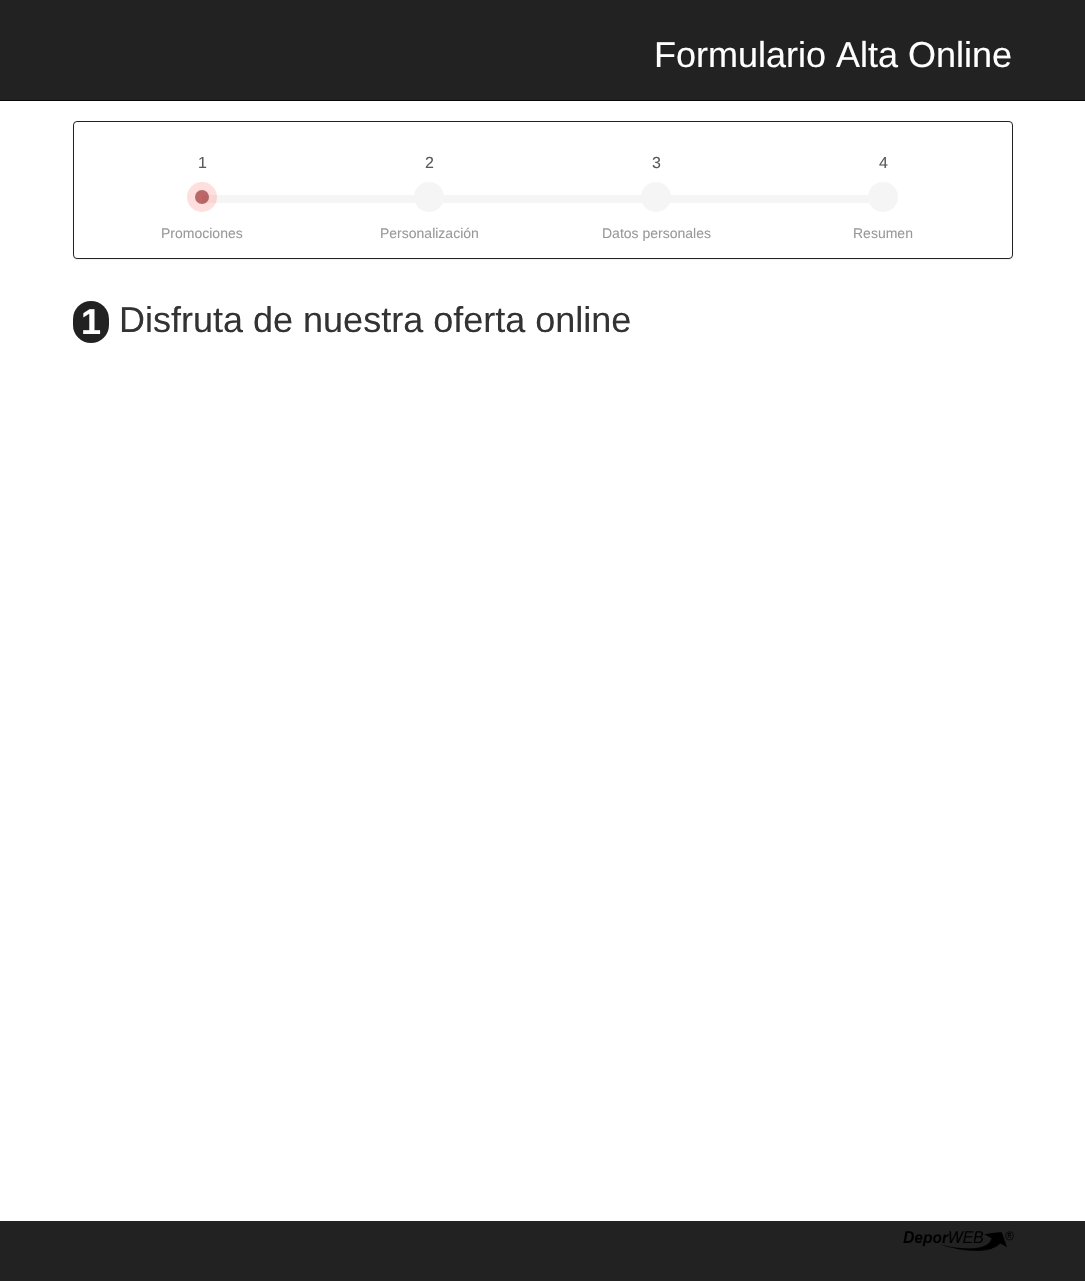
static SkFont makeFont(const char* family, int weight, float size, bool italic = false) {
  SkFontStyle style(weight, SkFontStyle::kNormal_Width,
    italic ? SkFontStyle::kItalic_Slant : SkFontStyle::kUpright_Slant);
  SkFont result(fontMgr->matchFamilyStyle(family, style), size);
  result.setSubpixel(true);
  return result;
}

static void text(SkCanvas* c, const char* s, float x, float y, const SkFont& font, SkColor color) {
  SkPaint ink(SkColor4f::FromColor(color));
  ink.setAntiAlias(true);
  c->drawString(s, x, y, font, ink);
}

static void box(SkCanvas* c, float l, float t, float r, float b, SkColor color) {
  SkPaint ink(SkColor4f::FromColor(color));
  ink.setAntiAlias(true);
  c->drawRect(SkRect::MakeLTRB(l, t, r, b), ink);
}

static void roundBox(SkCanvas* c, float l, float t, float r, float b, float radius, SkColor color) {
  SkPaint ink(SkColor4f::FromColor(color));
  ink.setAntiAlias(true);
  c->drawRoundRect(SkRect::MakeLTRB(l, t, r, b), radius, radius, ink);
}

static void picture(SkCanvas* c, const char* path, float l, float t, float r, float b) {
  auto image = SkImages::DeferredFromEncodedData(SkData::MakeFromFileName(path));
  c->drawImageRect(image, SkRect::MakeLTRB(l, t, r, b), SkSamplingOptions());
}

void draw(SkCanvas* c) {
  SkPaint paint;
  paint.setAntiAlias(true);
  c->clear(0xffffffff);
  box(c, 0, 0, 1085, 100, 0xff222222);
  box(c, 0, 100, 1085, 101, 0xff080808);
  SkFont face1 = makeFont("Liberation Sans", 400, 36);
  text(c, "Formulario Alta Online", 654, 67, face1, 0xffffffff);
  paint.setColor(0x0d000000);
  paint.setMaskFilter(SkMaskFilter::MakeBlur(kNormal_SkBlurStyle, 0.5f));
  c->drawRoundRect(SkRect::MakeLTRB(73, 122, 1013, 260), 4, 4, paint);
  paint.setMaskFilter(nullptr);
  paint.setColor(0xffffffff);
  c->drawRoundRect(SkRect::MakeLTRB(73.5f, 121.5f, 1012.5f, 258.5f), 3.5f, 3.5f, paint);
  paint.setStyle(SkPaint::kStroke_Style);
  paint.setStrokeWidth(1);
  paint.setColor(0xff222222);
  c->drawRoundRect(SkRect::MakeLTRB(73.5f, 121.5f, 1012.5f, 258.5f), 3.5f, 3.5f, paint);
  SkFont face2 = makeFont("Liberation Sans", 400, 16);
  text(c, "1", 198, 168, face2, 0xff595959);
  box(c, 202, 195, 870, 203, 0xfff5f5f5);
  paint.setStyle(SkPaint::kFill_Style);
  paint.setColor(0x21ff0000);
  c->drawCircle(202, 197, 15, paint);
  paint.setColor(0x877f0000);
  c->drawCircle(202, 197, 7, paint);
  SkFont face3 = makeFont("Liberation Sans", 400, 14);
  text(c, "Promociones", 161, 238, face3, 0xff999999);
  text(c, "2", 425, 168, face2, 0xff595959);
  paint.setColor(0xfff5f5f5);
  c->drawCircle(429, 197, 15, paint);
  text(c, "Personalización", 380, 238, face3, 0xff999999);
  text(c, "3", 652, 168, face2, 0xff595959);
  c->drawCircle(656, 197, 15, paint);
  text(c, "Datos personales", 602, 238, face3, 0xff999999);
  text(c, "4", 879, 168, face2, 0xff595959);
  c->drawCircle(883, 197, 15, paint);
  text(c, "Resumen", 853, 238, face3, 0xff999999);
  roundBox(c, 73, 301, 109, 343, 18, 0xff222222);
  SkFont face4 = makeFont("Liberation Sans", 700, 36);
  text(c, "1", 81, 334, face4, 0xffffffff);
  text(c, "Disfruta de nuestra oferta online", 119, 332, face1, 0xff333333);
  box(c, 0, 1221, 1085, 1281, 0xff222222);
  picture(c, "img_01.png", 903, 1231, 1014, 1251);
}
